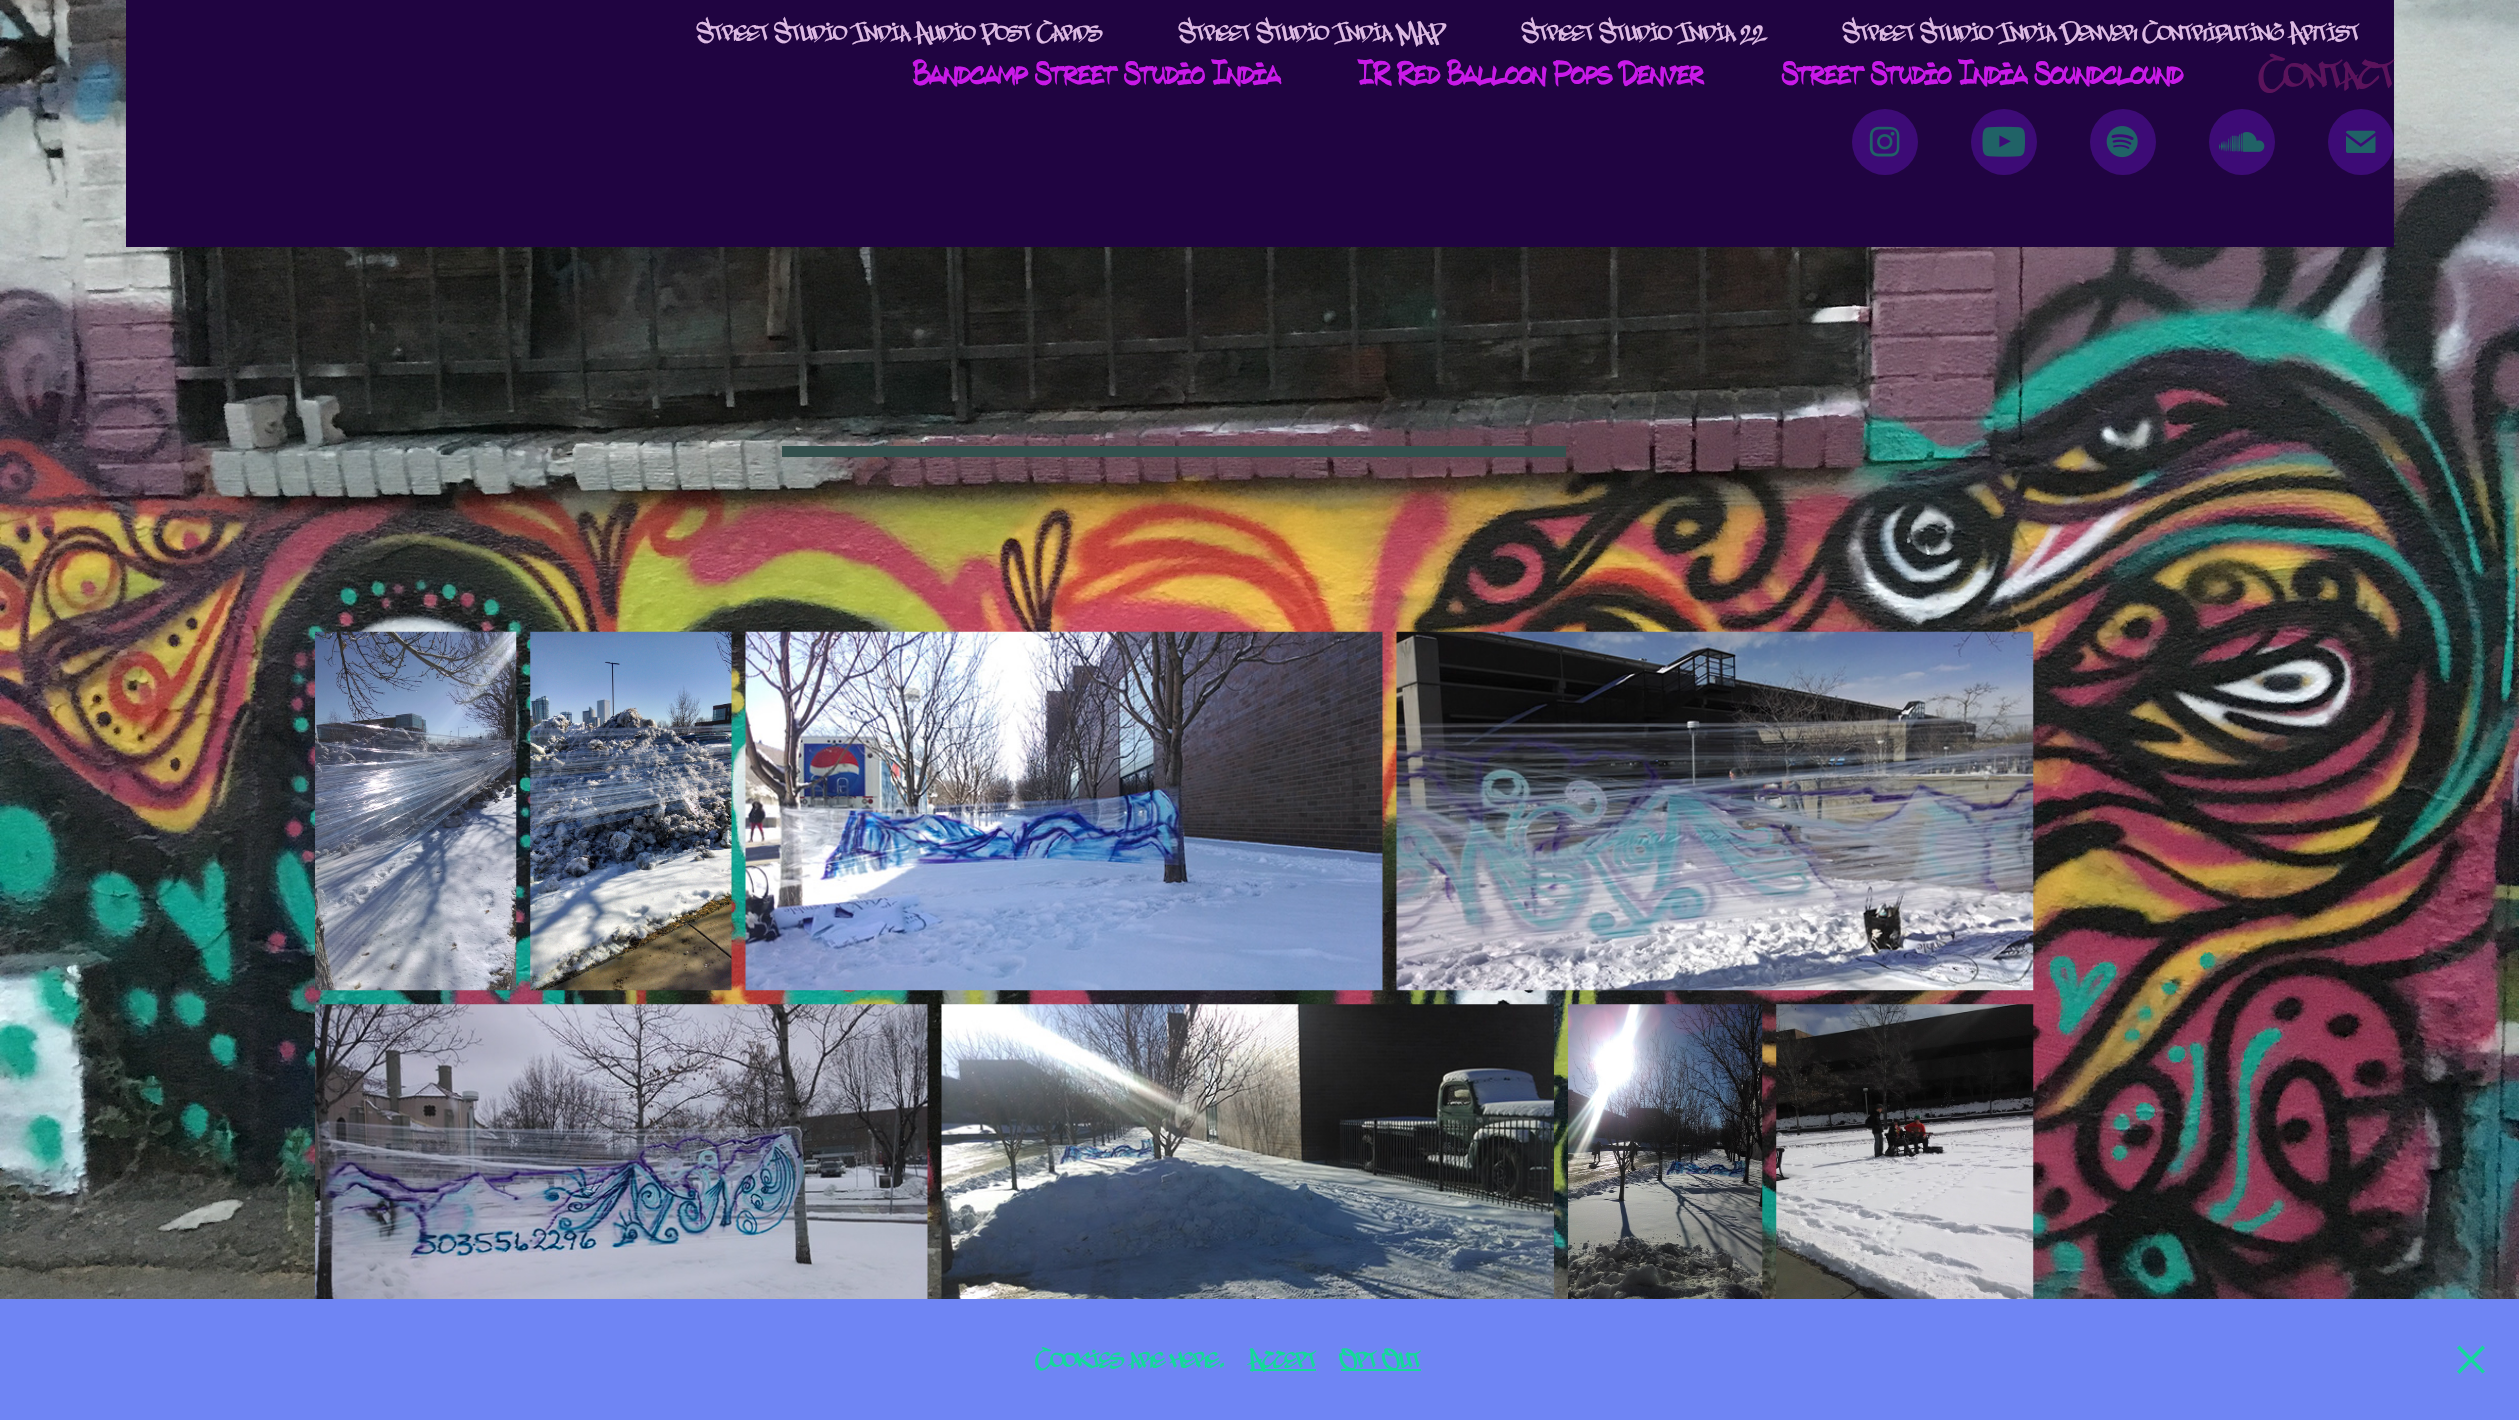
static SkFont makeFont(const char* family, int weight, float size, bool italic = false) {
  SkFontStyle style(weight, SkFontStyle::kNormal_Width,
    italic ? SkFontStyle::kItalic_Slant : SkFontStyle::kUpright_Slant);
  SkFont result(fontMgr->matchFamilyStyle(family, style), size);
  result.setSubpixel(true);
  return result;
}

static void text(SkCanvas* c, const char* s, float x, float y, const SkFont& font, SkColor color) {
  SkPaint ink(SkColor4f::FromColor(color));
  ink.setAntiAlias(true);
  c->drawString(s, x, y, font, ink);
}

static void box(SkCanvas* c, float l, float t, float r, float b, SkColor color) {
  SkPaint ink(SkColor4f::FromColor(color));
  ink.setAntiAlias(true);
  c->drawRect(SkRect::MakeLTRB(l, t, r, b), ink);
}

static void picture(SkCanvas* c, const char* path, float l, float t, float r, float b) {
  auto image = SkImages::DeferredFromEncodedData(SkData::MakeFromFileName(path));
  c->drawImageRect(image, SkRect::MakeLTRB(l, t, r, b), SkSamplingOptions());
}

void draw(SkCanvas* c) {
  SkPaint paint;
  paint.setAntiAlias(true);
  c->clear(0xffffffff);
  picture(c, "img_01.png", 0, 0, 2519, 1299);
  box(c, 126, 0, 2394, 247, 0xff200441);
  SkFont face1 = makeFont("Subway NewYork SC", 400, 31.5f);
  text(c, "Street Studio India Audio Post Cards", 697, 40, face1, 0xffddbae3);
  text(c, "Street Studio India MAP", 1179, 40, face1, 0xffddbae3);
  text(c, "Street Studio India 22", 1522, 40, face1, 0xffddbae3);
  text(c, "Street Studio India Denver Contributing Artist", 1843, 40, face1, 0xffddbae3);
  SkFont face2 = makeFont("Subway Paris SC", 400, 35);
  text(c, "Bandcamp Street Studio India", 913, 84, face2, 0xffc91ae8);
  text(c, "IR Red Balloon Pops Denver", 1358, 84, face2, 0xffc91ae8);
  text(c, "Street Studio India Soundclound", 1782, 84, face2, 0xffc91ae8);
  SkFont face3 = makeFont("Subway NewYork SC", 400, 52.5f);
  text(c, "Contact", 2260, 87, face3, 0xff5b135b);
  paint.setColor(0xff3d0b76);
  c->drawCircle(1885, 142, 33, paint);
  picture(c, "img_02.png", 1869, 126, 1900, 157);
  c->drawCircle(2004, 142, 33, paint);
  picture(c, "img_03.png", 1982, 126, 2025, 157);
  c->drawCircle(2123, 142, 33, paint);
  picture(c, "img_04.png", 2106, 126, 2138, 158);
  c->drawCircle(2242, 142, 33, paint);
  picture(c, "img_05.png", 2219, 132, 2265, 152);
  c->drawCircle(2361, 142, 33, paint);
  picture(c, "img_06.png", 2346, 130, 2376, 153);
  box(c, 782, 446, 1566, 457, 0xff33504d);
  picture(c, "img_07.png", 315, 631, 517, 991);
  picture(c, "img_08.png", 530, 631, 732, 991);
  picture(c, "img_09.png", 745, 631, 1383, 991);
  picture(c, "img_10.png", 1396, 631, 2034, 991);
  picture(c, "img_11.png", 315, 1004, 928, 1299);
  picture(c, "img_12.png", 941, 1004, 1554, 1299);
  picture(c, "img_13.png", 1568, 1004, 1763, 1299);
  picture(c, "img_14.png", 1776, 1004, 2034, 1299);
  box(c, 0, 1299, 2519, 1420, 0xff6f85f4);
  text(c, "Cookies are here.", 1036, 1367, face1, 0xff13da98);
  box(c, 1250, 1369, 1316, 1371, 0xff13da98);
  text(c, "Accept", 1249, 1367, face1, 0xff13da98);
  box(c, 1341, 1369, 1421, 1371, 0xff13da98);
  text(c, "Opt Out", 1340, 1367, face1, 0xff13da98);
  paint.setColor(0xff13da98);
  c->drawPath(SkPathBuilder().moveTo(2457, 1348).lineTo(2459.5f, 1345.5f).lineTo(2485, 1371.5f).lineTo(2482.5f, 1373.5f).close().detach(), paint);
  c->drawPath(SkPathBuilder().moveTo(2459.5f, 1374).lineTo(2457, 1371.5f).lineTo(2482.5f, 1345.5f).lineTo(2485, 1348).close().detach(), paint);
}
